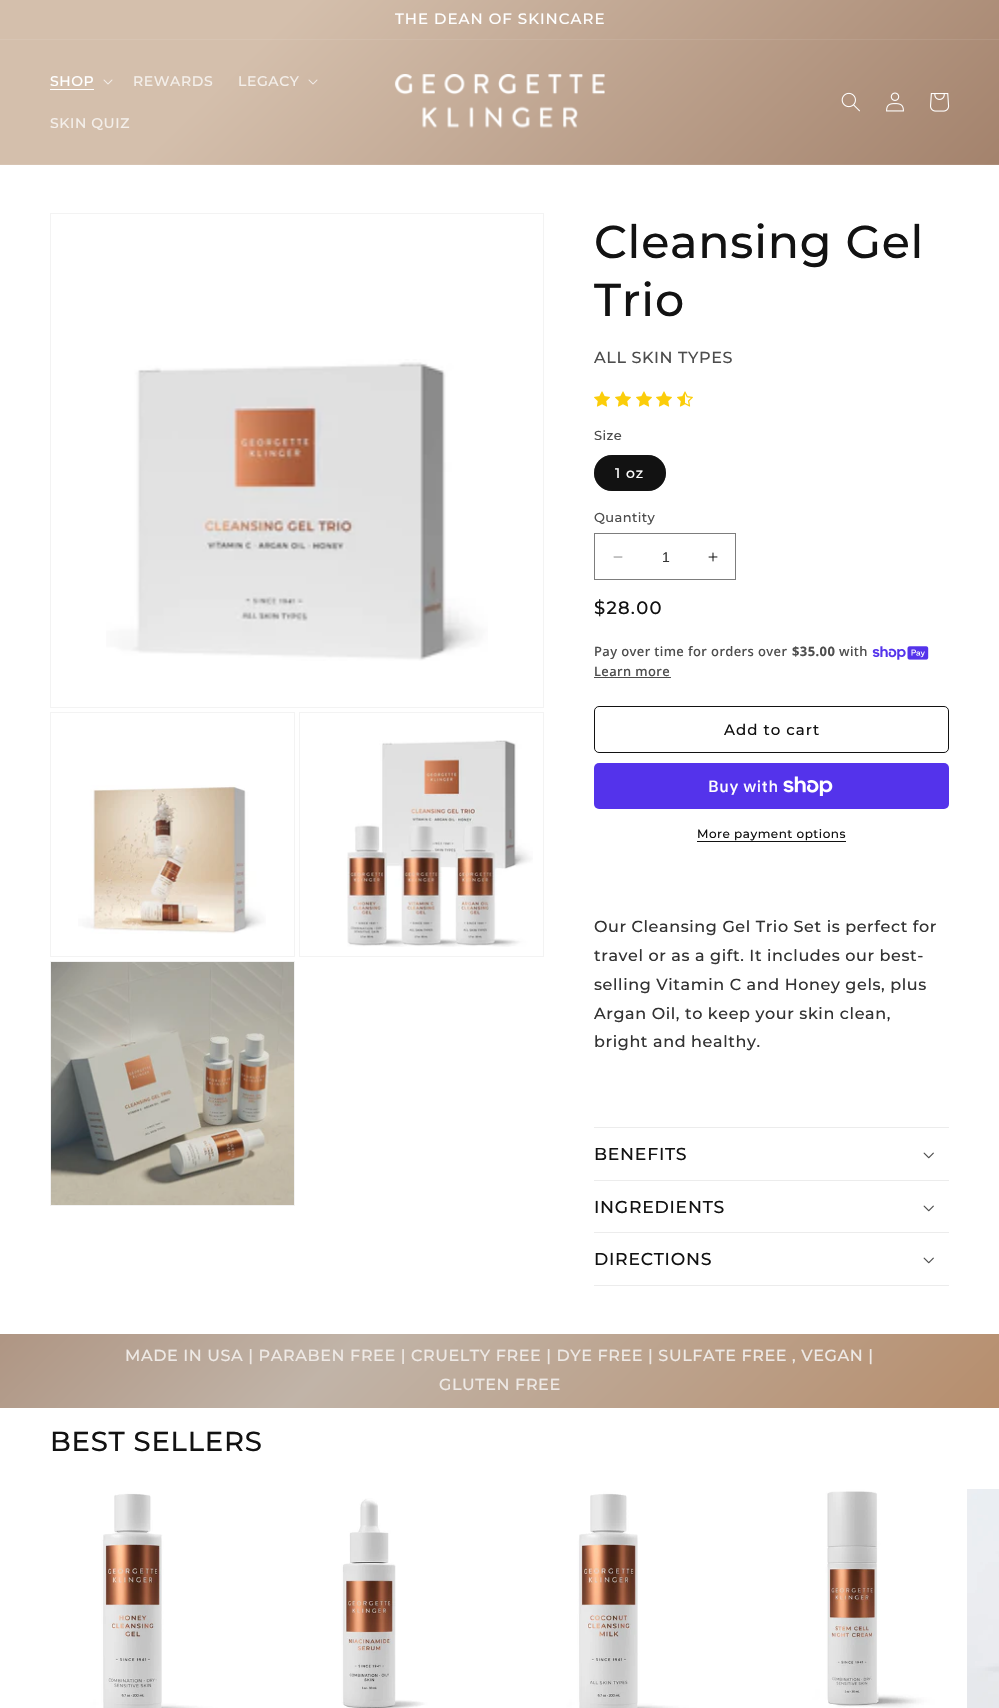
static SkFont makeFont(const char* family, int weight, float size, bool italic = false) {
  SkFontStyle style(weight, SkFontStyle::kNormal_Width,
    italic ? SkFontStyle::kItalic_Slant : SkFontStyle::kUpright_Slant);
  SkFont result(fontMgr->matchFamilyStyle(family, style), size);
  result.setSubpixel(true);
  return result;
}

static void text(SkCanvas* c, const char* s, float x, float y, const SkFont& font, SkColor color) {
  SkPaint ink(SkColor4f::FromColor(color));
  ink.setAntiAlias(true);
  c->drawString(s, x, y, font, ink);
}

static void spacedText(SkCanvas* c, const char* s, float x, float y, const SkFont& font, const SkPaint& ink, float letter, float word) {
  std::vector<SkGlyphID> glyphs(font.countText(s, strlen(s), SkTextEncoding::kUTF8));
  std::vector<float> xs(glyphs.size());
  font.textToGlyphs(s, strlen(s), SkTextEncoding::kUTF8, glyphs);
  font.getXPos(glyphs, xs, x);
  float extra = 0;
  for (size_t i = 0; i < glyphs.size(); i++) {
    xs[i] += extra;
    extra += letter + word * (glyphs[i] == font.unicharToGlyph(' '));
  }
  c->drawTextBlob(SkTextBlob::MakeFromPosHGlyphs(glyphs, xs, y, font), 0, 0, ink);
}

static void box(SkCanvas* c, float l, float t, float r, float b, SkColor color) {
  SkPaint ink(SkColor4f::FromColor(color));
  ink.setAntiAlias(true);
  c->drawRect(SkRect::MakeLTRB(l, t, r, b), ink);
}

static void roundBox(SkCanvas* c, float l, float t, float r, float b, float radius, SkColor color) {
  SkPaint ink(SkColor4f::FromColor(color));
  ink.setAntiAlias(true);
  c->drawRoundRect(SkRect::MakeLTRB(l, t, r, b), radius, radius, ink);
}

static void picture(SkCanvas* c, const char* path, float l, float t, float r, float b) {
  auto image = SkImages::DeferredFromEncodedData(SkData::MakeFromFileName(path));
  c->drawImageRect(image, SkRect::MakeLTRB(l, t, r, b), SkSamplingOptions());
}

void draw(SkCanvas* c) {
  SkPaint paint;
  paint.setAntiAlias(true);
  c->clear(0xffffffff);
  {
    const SkColor colors[] = {0xffd4bfac, 0xffa4836d, 0xffc1b4a8, 0xffb68c6a};
    const float stops[] = {0.11f, 0.42f, 0.63f, 0.9f};
    const SkPoint ends[] = {{-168, 163}, {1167, 1545}};
    paint.setShader(SkGradientShader::MakeLinear(ends, colors, stops, 4, SkTileMode::kClamp));
    paint.setAlpha(255);
  }
  c->drawRect(SkRect::MakeLTRB(0, 0, 999, 39), paint);
  {
    const SkColor colors[] = {0xffd7c4b3, 0xffab8d79, 0xffc6baaf, 0xffbc9576};
    const float stops[] = {0.11f, 0.42f, 0.63f, 0.9f};
    const SkPoint ends[] = {{-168, 163}, {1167, 1545}};
    paint.setShader(SkGradientShader::MakeLinear(ends, colors, stops, 4, SkTileMode::kClamp));
    paint.setAlpha(255);
  }
  c->drawRect(SkRect::MakeLTRB(0, 39, 999, 40), paint);
  SkFont face1 = makeFont("Montserrat", 500, 15);
  paint.setShader(nullptr);
  paint.setColor(0xffffffff);
  spacedText(c, "THE DEAN OF SKINCARE", 395, 24, face1, paint, 1, 0);
  {
    const SkColor colors[] = {0xffd4bfac, 0xffa4836d, 0xffc1b4a8, 0xffb68c6a};
    const float stops[] = {0.11f, 0.42f, 0.63f, 0.9f};
    const SkPoint ends[] = {{-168, 163}, {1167, 1545}};
    paint.setShader(SkGradientShader::MakeLinear(ends, colors, stops, 4, SkTileMode::kClamp));
    paint.setAlpha(255);
  }
  c->drawRect(SkRect::MakeLTRB(0, 40, 999, 164), paint);
  {
    const SkColor colors[] = {0xffd7c4b3, 0xffab8d79, 0xffc6baaf, 0xffbc9576};
    const float stops[] = {0.11f, 0.42f, 0.63f, 0.9f};
    const SkPoint ends[] = {{-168, 163}, {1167, 1545}};
    paint.setShader(SkGradientShader::MakeLinear(ends, colors, stops, 4, SkTileMode::kClamp));
    paint.setAlpha(255);
  }
  c->drawRect(SkRect::MakeLTRB(0, 164, 999, 165), paint);
  SkFont face2 = makeFont("Montserrat", 500, 14);
  paint.setShader(nullptr);
  paint.setColor(0xffffffff);
  spacedText(c, "SHOP", 50, 86, face2, paint, 0.6f, 0);
  box(c, 50, 89, 94, 90, 0xffffffff);
  picture(c, "img_01.png", 103, 79, 113, 85);
  paint.setColor(0xfff4efea);
  spacedText(c, "REWARDS", 133, 86, face2, paint, 0.6f, 0);
  spacedText(c, "LEGACY", 238, 86, face2, paint, 0.6f, 0);
  picture(c, "img_02.png", 308, 79, 318, 85);
  spacedText(c, "SKIN QUIZ", 50, 128, face2, paint, 0.6f, 0);
  picture(c, "img_03.png", 394, 74, 605, 129);
  picture(c, "img_04.png", 841, 92, 860, 112);
  picture(c, "img_05.png", 886, 92, 904, 112);
  picture(c, "img_06.png", 930, 93, 950, 112);
  paint.setStyle(SkPaint::kStroke_Style);
  paint.setStrokeWidth(1);
  paint.setColor(0xfff3f3f3);
  c->drawRect(SkRect::MakeLTRB(50.5f, 213.5f, 543.5f, 707.5f), paint);
  picture(c, "img_07.png", 106, 359, 488, 661);
  c->drawRect(SkRect::MakeLTRB(50.5f, 712.5f, 294.5f, 956.5f), paint);
  picture(c, "img_08.png", 78, 785, 266, 934);
  c->drawRect(SkRect::MakeLTRB(299.5f, 712.5f, 543.5f, 956.5f), paint);
  picture(c, "img_09.png", 347, 740, 533, 947);
  c->drawRect(SkRect::MakeLTRB(50.5f, 961.5f, 294.5f, 1205.5f), paint);
  picture(c, "img_10.png", 51, 962, 294, 1205);
  SkFont face3 = makeFont("Montserrat", 500, 46);
  paint.setStyle(SkPaint::kFill_Style);
  paint.setColor(0xff121212);
  spacedText(c, "Cleansing Gel", 594, 258, face3, paint, 0.75f, 0);
  spacedText(c, "Trio", 594, 316, face3, paint, 0.75f, 0);
  SkFont face4 = makeFont("Montserrat", 500, 16);
  paint.setColor(0xff4d4d4d);
  spacedText(c, "ALL SKIN TYPES", 594, 363, face4, paint, 0.6f, 0);
  picture(c, "img_11.png", 594, 391, 610, 407);
  picture(c, "img_11.png", 615, 391, 631, 407);
  picture(c, "img_11.png", 636, 391, 652, 407);
  picture(c, "img_11.png", 656, 391, 672, 407);
  picture(c, "img_12.png", 677, 391, 693, 407);
  SkFont face5 = makeFont("Montserrat", 500, 13);
  spacedText(c, "Size", 594, 440, face5, paint, 0.4f, 0);
  roundBox(c, 594, 455, 666, 491, 18, 0xff121212);
  paint.setStyle(SkPaint::kStroke_Style);
  paint.setColor(0x8c121212);
  c->drawRoundRect(SkRect::MakeLTRB(594.5f, 455.5f, 665.5f, 490.5f), 17.5f, 17.5f, paint);
  paint.setStyle(SkPaint::kFill_Style);
  paint.setColor(0xffffffff);
  spacedText(c, "1 oz", 615, 478, face2, paint, 1, 0);
  paint.setColor(0xff4d4d4d);
  spacedText(c, "Quantity", 594, 522, face5, paint, 0.4f, 0);
  picture(c, "img_13.png", 613, 556, 623, 558);
  picture(c, "img_14.png", 708, 552, 718, 562);
  paint.setStyle(SkPaint::kStroke_Style);
  paint.setColor(0xff7d7d7d);
  c->drawRect(SkRect::MakeLTRB(594.5f, 533.5f, 735.5f, 579.5f), paint);
  SkFont face6 = makeFont("Liberation Sans", 400, 14);
  text(c, "1", 662, 562, face6, 0xff333333);
  SkFont face7 = makeFont("Montserrat", 500, 18);
  paint.setStyle(SkPaint::kFill_Style);
  paint.setColor(0xff121212);
  spacedText(c, "$28.00", 594, 614, face7, paint, 1.25f, 0);
  SkFont face8 = makeFont("Noto Sans", 500, 13);
  paint.setColor(0xff4d4d4d);
  spacedText(c, "Pay over time for orders over", 594, 656, face8, paint, 0.4f, 0);
  SkFont face9 = makeFont("Noto Sans", 700, 13);
  spacedText(c, "$35.00", 792, 656, face9, paint, 0.4f, 0);
  spacedText(c, "with", 839, 656, face8, paint, 0.4f, 0);
  picture(c, "img_15.png", 872, 646, 929, 660);
  spacedText(c, "Learn more", 594, 676, face8, paint, 0.4f, 0);
  box(c, 594, 677, 671, 678, 0xff4d4d4d);
  paint.setStyle(SkPaint::kStroke_Style);
  paint.setColor(0xff121212);
  c->drawRoundRect(SkRect::MakeLTRB(594.5f, 706.5f, 948.5f, 752.5f), 4.5f, 4.5f, paint);
  paint.setStyle(SkPaint::kFill_Style);
  spacedText(c, "Add to cart", 724, 735, face1, paint, 1, 0);
  roundBox(c, 594, 763, 949, 809, 5, 0xff5433eb);
  SkFont face10 = makeFont("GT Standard", 500, 16);
  paint.setColor(0xffffffff);
  spacedText(c, "Buy with", 708, 792, face10, paint, 0.6f, 0);
  picture(c, "img_16.png", 783, 776, 833, 796);
  SkFont face11 = makeFont("Montserrat", 500, 12);
  paint.setColor(0xff121212);
  spacedText(c, "More payment options", 697, 838, face11, paint, 0.5f, 0);
  box(c, 697, 841, 846, 842, 0xff121212);
  paint.setColor(0xff333333);
  spacedText(c, "Our Cleansing Gel Trio Set is perfect for", 594, 932, face4, paint, 0.6f, 0);
  spacedText(c, "travel or as a gift. It includes our best-", 594, 961, face4, paint, 0.6f, 0);
  spacedText(c, "selling Vitamin C and Honey gels, plus", 594, 990, face4, paint, 0.6f, 0);
  spacedText(c, "Argan Oil, to keep your skin clean,", 594, 1019, face4, paint, 0.6f, 0);
  spacedText(c, "bright and healthy.", 594, 1047, face4, paint, 0.6f, 0);
  box(c, 594, 1127, 949, 1128, 0xffececec);
  box(c, 594, 1180, 949, 1181, 0xffececec);
  SkFont face12 = makeFont("Montserrat", 500, 17.25f);
  paint.setColor(0xff121212);
  spacedText(c, "BENEFITS", 594, 1160, face12, paint, 0.75f, 0);
  picture(c, "img_17.png", 923, 1152, 934, 1159);
  box(c, 594, 1232, 949, 1233, 0xffececec);
  spacedText(c, "INGREDIENTS", 594, 1213, face12, paint, 0.75f, 0);
  picture(c, "img_17.png", 923, 1205, 934, 1212);
  box(c, 594, 1285, 949, 1286, 0xffececec);
  spacedText(c, "DIRECTIONS", 594, 1265, face12, paint, 0.75f, 0);
  picture(c, "img_17.png", 923, 1257, 934, 1264);
  {
    const SkColor colors[] = {0xffd4bfac, 0xffa4836d, 0xffc1b4a8, 0xffb68c6a};
    const float stops[] = {0.11f, 0.42f, 0.63f, 0.9f};
    const SkPoint ends[] = {{-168, 163}, {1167, 1545}};
    paint.setShader(SkGradientShader::MakeLinear(ends, colors, stops, 4, SkTileMode::kClamp));
    paint.setAlpha(255);
  }
  c->drawRect(SkRect::MakeLTRB(0, 1334, 999, 1408), paint);
  paint.setShader(nullptr);
  paint.setColor(0xffeee9e5);
  spacedText(c, "MADE IN USA | PARABEN FREE | CRUELTY FREE | DYE FREE | SULFATE FREE , VEGAN |", 125, 1361, face4, paint, 0.6f, 0);
  spacedText(c, "GLUTEN FREE", 439, 1390, face4, paint, 0.6f, 0);
  SkFont face13 = makeFont("Montserrat", 500, 27.5f);
  paint.setColor(0xff121212);
  spacedText(c, "BEST SELLERS", 50, 1451, face13, paint, 0.75f, 0);
  picture(c, "img_18.png", 15, 1489, 249, 1708);
  picture(c, "img_19.png", 253, 1489, 487, 1708);
  picture(c, "img_20.png", 491, 1489, 725, 1708);
  picture(c, "img_21.png", 729, 1489, 963, 1708);
  picture(c, "img_22.png", 967, 1489, 999, 1708);
}
